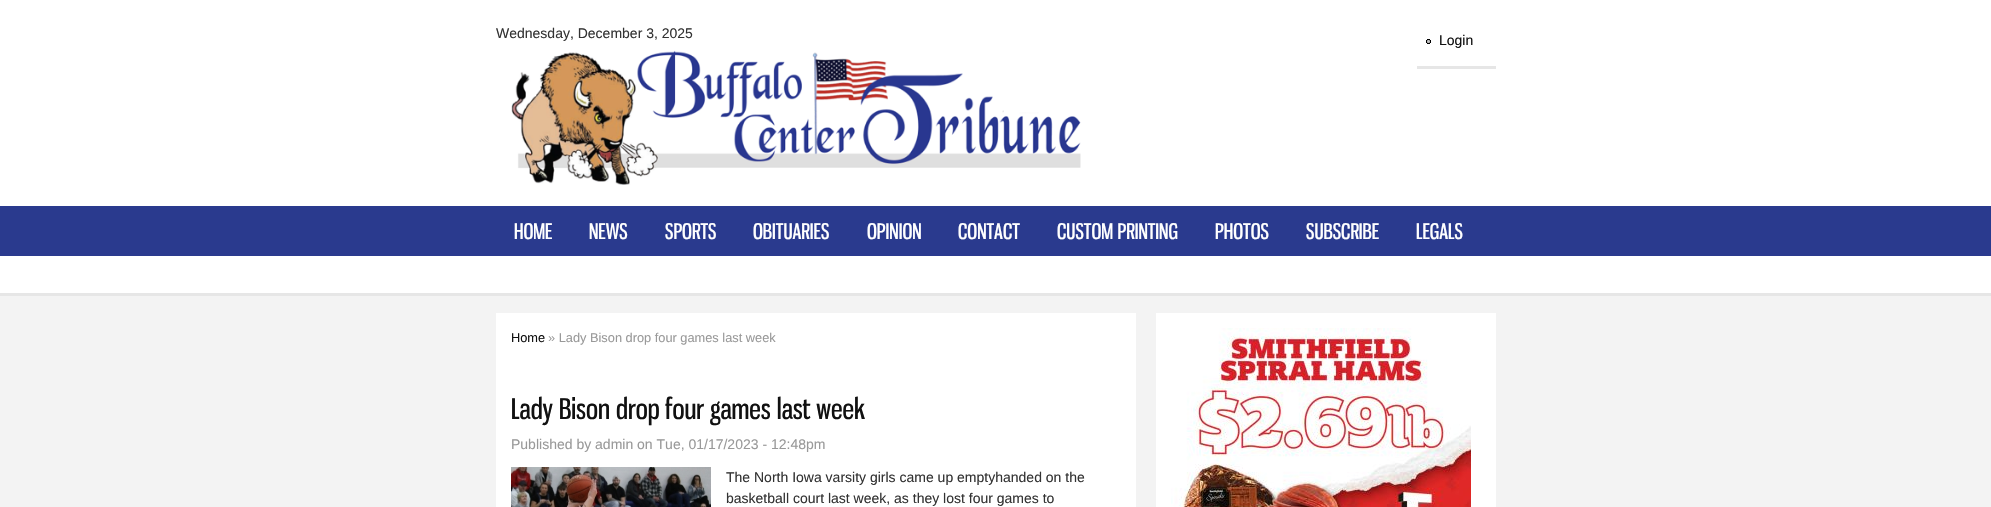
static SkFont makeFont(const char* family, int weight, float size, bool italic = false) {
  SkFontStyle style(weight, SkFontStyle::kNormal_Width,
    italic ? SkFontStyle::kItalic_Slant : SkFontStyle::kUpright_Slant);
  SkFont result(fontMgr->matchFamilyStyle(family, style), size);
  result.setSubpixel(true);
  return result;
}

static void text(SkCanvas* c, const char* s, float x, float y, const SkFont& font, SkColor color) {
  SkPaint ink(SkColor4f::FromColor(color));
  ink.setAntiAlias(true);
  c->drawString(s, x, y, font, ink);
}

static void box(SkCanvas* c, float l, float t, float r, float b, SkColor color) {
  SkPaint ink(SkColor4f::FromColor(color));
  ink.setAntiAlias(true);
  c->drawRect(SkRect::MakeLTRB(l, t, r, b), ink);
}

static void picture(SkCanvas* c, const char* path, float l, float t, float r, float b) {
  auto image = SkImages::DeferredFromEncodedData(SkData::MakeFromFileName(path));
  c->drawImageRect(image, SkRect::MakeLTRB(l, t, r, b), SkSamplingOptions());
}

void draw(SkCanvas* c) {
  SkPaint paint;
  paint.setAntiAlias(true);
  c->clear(0xfff3f3f3);
  box(c, 0, 0, 1991, 206, 0xffffffff);
  SkFont face1 = makeFont("Liberation Sans", 400, 14);
  text(c, "Wednesday, December 3, 2025", 496, 38, face1, 0xff333333);
  picture(c, "img_01.png", 511, 50, 1081, 185);
  box(c, 1417, 66, 1496, 69, 0xffe6e6e6);
  picture(c, "img_02.png", 1426, 39, 1431, 44);
  text(c, "Login", 1439, 45, face1, 0xff111111);
  box(c, 0, 206, 1991, 256, 0xff2a3a8e);
  box(c, 0, 293, 1991, 296, 0xffe6e6e6);
  SkFont face2 = makeFont("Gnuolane", 400, 21);
  text(c, "HOME", 514, 239, face2, 0xffffffff);
  text(c, "NEWS", 589, 239, face2, 0xffffffff);
  text(c, "SPORTS", 665, 239, face2, 0xffffffff);
  text(c, "OBITUARIES", 753, 239, face2, 0xffffffff);
  text(c, "OPINION", 867, 239, face2, 0xffffffff);
  text(c, "CONTACT", 958, 239, face2, 0xffffffff);
  text(c, "CUSTOM PRINTING", 1057, 239, face2, 0xffffffff);
  text(c, "PHOTOS", 1215, 239, face2, 0xffffffff);
  text(c, "SUBSCRIBE", 1306, 239, face2, 0xffffffff);
  text(c, "LEGALS", 1416, 239, face2, 0xffffffff);
  box(c, 0, 256, 1991, 293, 0xffffffff);
  box(c, 496, 313, 1136, 507, 0xffffffff);
  SkFont face3 = makeFont("Liberation Sans", 400, 12.8f);
  text(c, "Home", 511, 342, face3, 0xff111111);
  text(c, "» Lady Bison drop four games last week", 548, 342, face3, 0xff999999);
  SkFont face4 = makeFont("Gnuolane", 400, 28);
  text(c, "Lady Bison drop four games last week", 511, 419, face4, 0xff111111);
  text(c, "Published by admin on Tue, 01/17/2023 - 12:48pm", 511, 449, face1, 0xff999999);
  picture(c, "img_03.png", 511, 467, 711, 507);
  text(c, "The North Iowa varsity girls came up emptyhanded on the", 726, 482, face1, 0xff333333);
  text(c, "basketball court last week, as they lost four games to", 726, 503, face1, 0xff333333);
  box(c, 1156, 313, 1496, 507, 0xffffffff);
  picture(c, "img_04.png", 1171, 328, 1471, 507);
}
